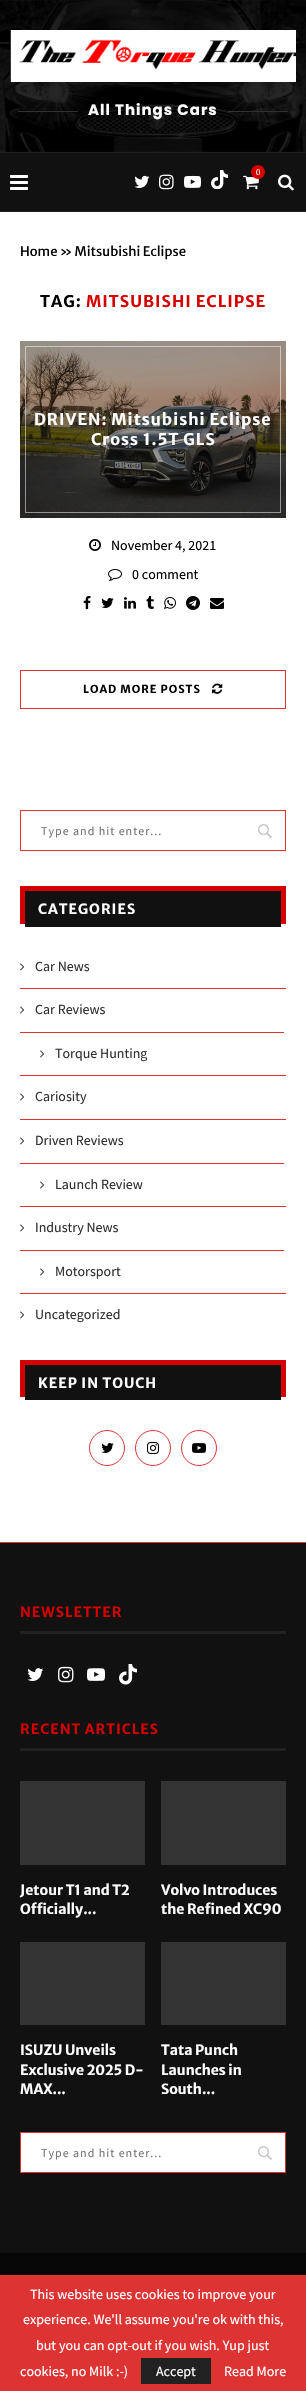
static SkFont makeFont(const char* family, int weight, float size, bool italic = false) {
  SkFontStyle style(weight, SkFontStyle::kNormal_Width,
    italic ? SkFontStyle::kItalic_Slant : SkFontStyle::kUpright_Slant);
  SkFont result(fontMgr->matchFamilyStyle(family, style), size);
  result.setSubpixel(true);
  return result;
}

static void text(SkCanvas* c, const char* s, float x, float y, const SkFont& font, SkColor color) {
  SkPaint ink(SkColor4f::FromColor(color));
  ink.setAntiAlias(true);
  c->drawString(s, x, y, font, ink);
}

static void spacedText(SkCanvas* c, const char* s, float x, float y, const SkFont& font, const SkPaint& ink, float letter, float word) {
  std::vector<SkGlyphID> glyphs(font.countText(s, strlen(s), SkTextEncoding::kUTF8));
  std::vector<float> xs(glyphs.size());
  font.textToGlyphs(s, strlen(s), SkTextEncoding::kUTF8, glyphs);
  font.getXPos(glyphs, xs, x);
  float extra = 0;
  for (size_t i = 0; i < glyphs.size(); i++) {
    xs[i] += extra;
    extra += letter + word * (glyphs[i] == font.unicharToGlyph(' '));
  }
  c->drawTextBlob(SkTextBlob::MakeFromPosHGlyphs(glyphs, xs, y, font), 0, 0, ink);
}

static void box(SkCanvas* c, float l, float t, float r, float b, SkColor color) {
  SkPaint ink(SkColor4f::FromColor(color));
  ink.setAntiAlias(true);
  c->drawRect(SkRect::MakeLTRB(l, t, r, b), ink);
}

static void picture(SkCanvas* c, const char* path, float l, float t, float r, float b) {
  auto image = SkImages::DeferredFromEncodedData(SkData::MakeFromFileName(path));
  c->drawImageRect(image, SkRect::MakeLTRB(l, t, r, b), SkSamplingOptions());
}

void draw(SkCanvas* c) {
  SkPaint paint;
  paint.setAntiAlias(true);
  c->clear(0xffffffff);
  picture(c, "img_01.png", 0, 0, 306, 152);
  picture(c, "img_02.png", 10, 30, 296, 82);
  box(c, 18, 111, 78, 112, 0xff313131);
  SkFont face1 = makeFont("Poppins", 700, 15);
  paint.setColor(0xffffffff);
  spacedText(c, "All Things Cars", 88, 115, face1, paint, 1, 0);
  box(c, 228, 111, 288, 112, 0xff313131);
  box(c, 0, 153, 306, 211, 0xff111111);
  box(c, 0, 152, 306, 153, 0xff212121);
  box(c, 0, 211, 306, 212, 0xff212121);
  picture(c, "img_03.png", 10, 175, 28, 190);
  picture(c, "img_04.png", 134, 175, 150, 188);
  picture(c, "img_05.png", 159, 174, 174, 190);
  picture(c, "img_06.png", 184, 175, 201, 188);
  picture(c, "img_07.png", 211, 170, 228, 189);
  picture(c, "img_08.png", 243, 175, 259, 190);
  paint.setColor(0xffd50000);
  c->drawCircle(258, 172, 7, paint);
  SkFont face2 = makeFont("PT Serif", 400, 8);
  text(c, "0", 256, 175, face2, 0xffffffff);
  picture(c, "img_09.png", 278, 174, 294, 191);
  SkFont face3 = makeFont("Merriweather Sans", 400, 13);
  text(c, "Home » Mitsubishi Eclipse", 20, 256, face3, 0xff000000);
  SkFont face4 = makeFont("Merriweather Sans", 700, 16);
  paint.setColor(0xff000000);
  spacedText(c, "TAG:", 40, 307, face4, paint, 1, 0);
  paint.setColor(0xffd50000);
  spacedText(c, "MITSUBISHI ECLIPSE", 86, 307, face4, paint, 1, 0);
  picture(c, "img_10.png", 20, 341, 286, 518);
  paint.setStyle(SkPaint::kStroke_Style);
  paint.setStrokeWidth(1);
  paint.setColor(0x80ffffff);
  c->drawRect(SkRect::MakeLTRB(25.5f, 346.5f, 280.5f, 512.5f), paint);
  paint.setStyle(SkPaint::kFill_Style);
  paint.setColor(0xffffffff);
  spacedText(c, "DRIVEN: Mitsubishi Eclipse", 34, 425, face4, paint, 1, 0);
  spacedText(c, "Cross 1.5T GLS", 91, 445, face4, paint, 1, 0);
  picture(c, "img_11.png", 89, 539, 101, 551);
  SkFont face5 = makeFont("Source Sans Pro", 400, 14);
  text(c, "November 4, 2021", 111, 550, face5, 0xff000000);
  picture(c, "img_12.png", 108, 569, 122, 581);
  text(c, "0 comment", 132, 579, face5, 0xff000000);
  picture(c, "img_13.png", 83, 596, 91, 609);
  picture(c, "img_14.png", 101, 598, 114, 608);
  picture(c, "img_15.png", 124, 597, 136, 609);
  picture(c, "img_16.png", 146, 596, 154, 609);
  picture(c, "img_17.png", 164, 597, 176, 609);
  picture(c, "img_18.png", 186, 596, 200, 610);
  picture(c, "img_19.png", 210, 598, 224, 609);
  paint.setStyle(SkPaint::kStroke_Style);
  paint.setColor(0xffdd3333);
  c->drawRect(SkRect::MakeLTRB(20.5f, 670.5f, 285.5f, 708.5f), paint);
  SkFont face6 = makeFont("Merriweather Sans", 700, 11);
  paint.setStyle(SkPaint::kFill_Style);
  paint.setColor(0xff000000);
  spacedText(c, "LOAD MORE POSTS", 83, 693, face6, paint, 1, 0);
  picture(c, "img_20.png", 212, 683, 223, 694);
  picture(c, "img_21.png", 258, 824, 272, 838);
  paint.setStyle(SkPaint::kStroke_Style);
  paint.setColor(0xffdd3333);
  c->drawRect(SkRect::MakeLTRB(20.5f, 810.5f, 285.5f, 850.5f), paint);
  SkFont face7 = makeFont("Source Sans Pro", 400, 12);
  paint.setStyle(SkPaint::kFill_Style);
  paint.setColor(0xff757575);
  spacedText(c, "Type and hit enter...", 41, 835, face7, paint, 1, 0);
  box(c, 20, 886, 286, 924, 0xffd50000);
  box(c, 25, 891, 281, 927, 0xff111111);
  SkFont face8 = makeFont("Merriweather Sans", 700, 14);
  paint.setColor(0xffffffff);
  spacedText(c, "CATEGORIES", 38, 914, face8, paint, 1, 0);
  box(c, 20, 988, 286, 989, 0xffdd3333);
  picture(c, "img_22.png", 20, 963, 25, 971);
  text(c, "Car News", 35, 971, face5, 0xff313131);
  box(c, 20, 1075, 286, 1076, 0xffdd3333);
  picture(c, "img_22.png", 20, 1006, 25, 1014);
  text(c, "Car Reviews", 35, 1014, face5, 0xff313131);
  box(c, 20, 1032, 284, 1033, 0xffdd3333);
  picture(c, "img_22.png", 40, 1050, 45, 1058);
  text(c, "Torque Hunting", 55, 1058, face5, 0xff313131);
  box(c, 20, 1119, 286, 1120, 0xffdd3333);
  picture(c, "img_22.png", 20, 1093, 25, 1101);
  text(c, "Cariosity", 35, 1101, face5, 0xff313131);
  box(c, 20, 1206, 286, 1207, 0xffdd3333);
  picture(c, "img_22.png", 20, 1137, 25, 1145);
  text(c, "Driven Reviews", 35, 1145, face5, 0xff313131);
  box(c, 20, 1163, 284, 1164, 0xffdd3333);
  picture(c, "img_22.png", 40, 1181, 45, 1189);
  text(c, "Launch Review", 55, 1189, face5, 0xff313131);
  box(c, 20, 1293, 286, 1294, 0xffdd3333);
  picture(c, "img_22.png", 20, 1224, 25, 1232);
  text(c, "Industry News", 35, 1232, face5, 0xff313131);
  box(c, 20, 1250, 284, 1251, 0xffdd3333);
  picture(c, "img_22.png", 40, 1268, 45, 1276);
  text(c, "Motorsport", 55, 1276, face5, 0xff313131);
  picture(c, "img_22.png", 20, 1311, 25, 1319);
  text(c, "Uncategorized", 35, 1319, face5, 0xff313131);
  box(c, 20, 1360, 286, 1397, 0xffd50000);
  box(c, 25, 1365, 281, 1400, 0xff111111);
  spacedText(c, "KEEP IN TOUCH", 38, 1388, face8, paint, 1, 0);
  paint.setStyle(SkPaint::kStroke_Style);
  paint.setColor(0xffdd3333);
  c->drawCircle(107, 1448, 17.5f, paint);
  picture(c, "img_14.png", 101, 1443, 114, 1453);
  c->drawCircle(153, 1448, 17.5f, paint);
  picture(c, "img_23.png", 147, 1442, 159, 1454);
  c->drawCircle(199, 1448, 17.5f, paint);
  picture(c, "img_24.png", 192, 1443, 206, 1453);
  box(c, 0, 1543, 306, 2253, 0xff111111);
  box(c, 0, 1542, 306, 1543, 0xffdd3333);
  box(c, 20, 1631, 286, 1634, 0xff212121);
  paint.setStyle(SkPaint::kFill_Style);
  paint.setColor(0xffd50000);
  spacedText(c, "NEWSLETTER", 20, 1617, face8, paint, 1, 0);
  picture(c, "img_25.png", 27, 1668, 44, 1681);
  picture(c, "img_26.png", 58, 1666, 74, 1683);
  picture(c, "img_27.png", 87, 1668, 105, 1681);
  picture(c, "img_28.png", 119, 1664, 137, 1685);
  box(c, 20, 1748, 286, 1751, 0xff212121);
  spacedText(c, "RECENT ARTICLES", 20, 1734, face8, paint, 1, 0);
  box(c, 20, 1781, 145, 1865, 0xff333333);
  text(c, "Jetour T1 and T2", 20, 1895, face8, 0xffffffff);
  text(c, "Officially...", 20, 1914, face8, 0xffffffff);
  box(c, 161, 1781, 286, 1865, 0xff333333);
  text(c, "Volvo Introduces", 161, 1895, face8, 0xffffffff);
  text(c, "the Refined XC90", 161, 1914, face8, 0xffffffff);
  box(c, 20, 1942, 145, 2025, 0xff333333);
  text(c, "ISUZU Unveils", 20, 2055, face8, 0xffffffff);
  text(c, "Exclusive 2025 D-", 20, 2075, face8, 0xffffffff);
  text(c, "MAX...", 20, 2094, face8, 0xffffffff);
  box(c, 161, 1942, 286, 2025, 0xff333333);
  text(c, "Tata Punch", 161, 2055, face8, 0xffffffff);
  text(c, "Launches in", 161, 2075, face8, 0xffffffff);
  text(c, "South...", 161, 2094, face8, 0xffffffff);
  box(c, 21, 2133, 285, 2172, 0xffffffff);
  picture(c, "img_21.png", 258, 2146, 272, 2160);
  paint.setStyle(SkPaint::kStroke_Style);
  paint.setColor(0xffdd3333);
  c->drawRect(SkRect::MakeLTRB(20.5f, 2132.5f, 285.5f, 2172.5f), paint);
  paint.setStyle(SkPaint::kFill_Style);
  paint.setColor(0xff757575);
  spacedText(c, "Type and hit enter...", 41, 2157, face7, paint, 1, 0);
  box(c, 0, 2253, 306, 2275, 0xff060606);
  box(c, 0, 2275, 306, 2391, 0xffdd3333);
  text(c, "This website uses cookies to improve your", 30, 2299, face5, 0xffffffff);
  text(c, "experience. We'll assume you're ok with this,", 23, 2324, face5, 0xffffffff);
  text(c, "but you can opt-out if you wish. Yup just", 36, 2350, face5, 0xffffffff);
  text(c, "cookies, no Milk :-)", 20, 2376, face5, 0xffffffff);
  box(c, 141, 2358, 211, 2384, 0xff212121);
  text(c, "Accept", 156, 2376, face5, 0xffffffff);
  text(c, "Read More", 224, 2376, face5, 0xffffffff);
}
